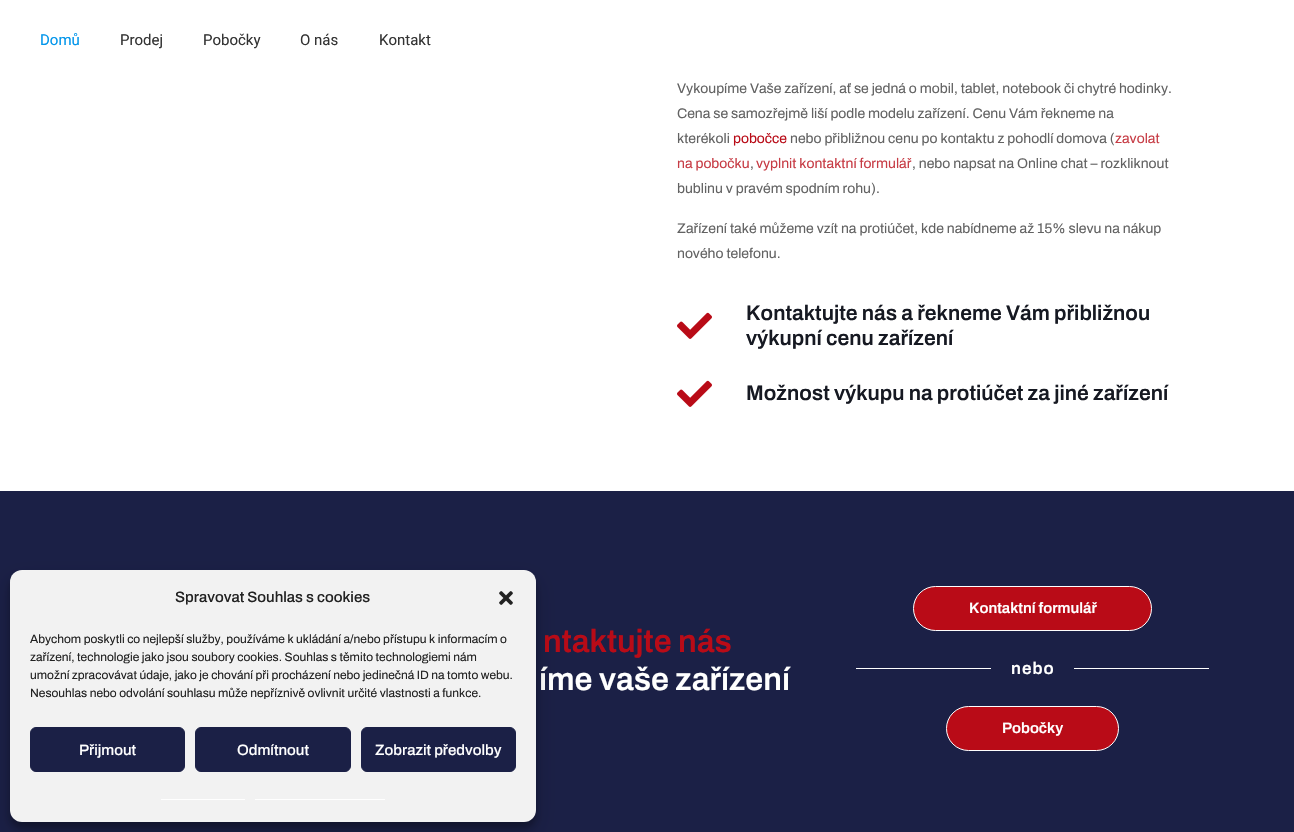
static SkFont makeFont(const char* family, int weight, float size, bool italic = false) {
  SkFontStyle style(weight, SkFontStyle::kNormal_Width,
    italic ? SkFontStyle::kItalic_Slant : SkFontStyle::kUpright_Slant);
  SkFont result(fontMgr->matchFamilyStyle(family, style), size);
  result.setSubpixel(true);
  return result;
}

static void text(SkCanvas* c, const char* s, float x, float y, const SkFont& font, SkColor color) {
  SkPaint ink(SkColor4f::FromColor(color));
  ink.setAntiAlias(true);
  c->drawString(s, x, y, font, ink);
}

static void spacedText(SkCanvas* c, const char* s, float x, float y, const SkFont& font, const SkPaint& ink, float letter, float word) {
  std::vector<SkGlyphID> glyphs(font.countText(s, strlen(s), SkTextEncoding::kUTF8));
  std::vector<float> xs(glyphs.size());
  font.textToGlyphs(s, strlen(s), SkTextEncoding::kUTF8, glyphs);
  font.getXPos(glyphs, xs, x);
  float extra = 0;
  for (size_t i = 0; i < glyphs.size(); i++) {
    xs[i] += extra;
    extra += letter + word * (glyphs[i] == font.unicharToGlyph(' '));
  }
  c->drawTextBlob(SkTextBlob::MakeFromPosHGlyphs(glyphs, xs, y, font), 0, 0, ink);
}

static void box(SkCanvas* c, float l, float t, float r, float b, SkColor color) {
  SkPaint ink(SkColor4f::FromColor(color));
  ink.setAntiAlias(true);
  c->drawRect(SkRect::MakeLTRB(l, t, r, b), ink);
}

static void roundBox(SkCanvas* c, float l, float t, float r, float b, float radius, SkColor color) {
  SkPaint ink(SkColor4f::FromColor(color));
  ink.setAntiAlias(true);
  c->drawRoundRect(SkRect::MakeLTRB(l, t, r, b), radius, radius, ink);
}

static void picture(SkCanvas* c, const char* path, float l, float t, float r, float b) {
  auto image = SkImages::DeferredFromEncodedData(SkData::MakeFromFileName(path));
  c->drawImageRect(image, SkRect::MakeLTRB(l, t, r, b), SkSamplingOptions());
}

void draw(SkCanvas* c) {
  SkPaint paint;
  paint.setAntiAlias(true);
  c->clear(0xffffffff);
  SkFont face1 = makeFont("Roboto", 400, 15);
  text(c, "Domů", 40, 45, face1, 0xff0095eb);
  text(c, "Prodej", 120, 45, face1, 0xff333333);
  text(c, "Pobočky", 203, 45, face1, 0xff333333);
  text(c, "O nás", 300, 45, face1, 0xff333333);
  text(c, "Kontakt", 379, 45, face1, 0xff333333);
  SkFont face2 = makeFont("Archivo", 400, 14);
  text(c, "Vykoupíme Vaše zařízení, ať se jedná o mobil, tablet, notebook či chytré hodinky.", 677, 93, face2, 0xff626262);
  text(c, "Cena se samozřejmě liší podle modelu zařízení. Cenu Vám řekneme na", 677, 118, face2, 0xff626262);
  text(c, "kterékoli", 677, 143, face2, 0xff626262);
  text(c, "pobočce", 733, 143, face2, 0xffb90b17);
  text(c, "nebo přibližnou cenu po kontaktu z pohodlí domova (", 790, 143, face2, 0xff626262);
  text(c, "zavolat", 1115, 143, face2, 0xffc73c45);
  text(c, "na pobočku", 677, 168, face2, 0xffc73c45);
  text(c, ",", 750, 168, face2, 0xff626262);
  text(c, "vyplnit kontaktní formulář", 756, 168, face2, 0xffc73c45);
  text(c, ", nebo napsat na Online chat – rozkliknout", 912, 168, face2, 0xff626262);
  text(c, "bublinu v pravém spodním rohu).", 677, 193, face2, 0xff626262);
  text(c, "Zařízení také můžeme vzít na protiúčet, kde nabídneme až 15% slevu na nákup", 677, 233, face2, 0xff626262);
  text(c, "nového telefonu.", 677, 258, face2, 0xff626262);
  picture(c, "img_01.png", 677, 312, 712, 339);
  SkFont face3 = makeFont("Archivo", 600, 21);
  text(c, "Kontaktujte nás a řekneme Vám přibližnou", 746, 320, face3, 0xff161922);
  text(c, "výkupní cenu zařízení", 746, 345, face3, 0xff161922);
  picture(c, "img_01.png", 677, 380, 712, 407);
  text(c, "Možnost výkupu na protiúčet za jiné zařízení", 746, 400, face3, 0xff161922);
  box(c, 0, 491, 1294, 832, 0xff1b2046);
  SkFont face4 = makeFont("Archivo", 600, 32);
  text(c, "ntaktujte nás", 543, 652, face4, 0xffb90b17);
  text(c, "íme vaše zařízení", 539, 690, face4, 0xffffffff);
  paint.setColor(0xffb90b17);
  c->drawRoundRect(SkRect::MakeLTRB(913.5f, 586.5f, 1151.5f, 630.5f), 22, 22, paint);
  paint.setStyle(SkPaint::kStroke_Style);
  paint.setStrokeWidth(1);
  paint.setColor(0xffffffff);
  c->drawRoundRect(SkRect::MakeLTRB(913.5f, 586.5f, 1151.5f, 630.5f), 22, 22, paint);
  SkFont face5 = makeFont("Archivo", 600, 15);
  text(c, "Kontaktní formulář", 969, 613, face5, 0xffffffff);
  box(c, 856, 668, 991, 669, 0xffffffff);
  SkFont face6 = makeFont("Archivo", 600, 17);
  paint.setStyle(SkPaint::kFill_Style);
  spacedText(c, "nebo", 1011, 674, face6, paint, 1, 0);
  box(c, 1074, 668, 1209, 669, 0xffffffff);
  paint.setColor(0xffb90b17);
  c->drawRoundRect(SkRect::MakeLTRB(946.5f, 706.5f, 1118.5f, 750.5f), 22, 22, paint);
  paint.setStyle(SkPaint::kStroke_Style);
  paint.setColor(0xffffffff);
  c->drawRoundRect(SkRect::MakeLTRB(946.5f, 706.5f, 1118.5f, 750.5f), 22, 22, paint);
  text(c, "Pobočky", 1002, 733, face5, 0xffffffff);
  paint.setStyle(SkPaint::kFill_Style);
  paint.setColor(0x3b000000);
  paint.setMaskFilter(SkMaskFilter::MakeBlur(kNormal_SkBlurStyle, 3));
  c->drawRoundRect(SkRect::MakeLTRB(10, 576, 536, 828), 12, 12, paint);
  paint.setMaskFilter(nullptr);
  paint.setColor(0x30000000);
  paint.setMaskFilter(SkMaskFilter::MakeBlur(kNormal_SkBlurStyle, 10));
  c->drawRoundRect(SkRect::MakeLTRB(10, 580, 536, 832), 12, 12, paint);
  paint.setMaskFilter(nullptr);
  roundBox(c, 10, 570, 536, 822, 12, 0xfff2f2f2);
  SkFont face7 = makeFont("Archivo", 500, 15);
  text(c, "Spravovat Souhlas s cookies", 175, 602, face7, 0xff222222);
  picture(c, "img_02.png", 499, 591, 513, 605);
  SkFont face8 = makeFont("Archivo", 400, 12);
  text(c, "Abychom poskytli co nejlepší služby, používáme k ukládání a/nebo přístupu k informacím o", 30, 643, face8, 0xff222222);
  text(c, "zařízení, technologie jako jsou soubory cookies. Souhlas s těmito technologiemi nám", 30, 661, face8, 0xff222222);
  text(c, "umožní zpracovávat údaje, jako je chování při procházení nebo jedinečná ID na tomto webu.", 30, 679, face8, 0xff222222);
  text(c, "Nesouhlas nebo odvolání souhlasu může nepříznivě ovlivnit určité vlastnosti a funkce.", 30, 697, face8, 0xff222222);
  paint.setColor(0xff1b2046);
  c->drawRoundRect(SkRect::MakeLTRB(30.5f, 727.5f, 184.5f, 771.5f), 5.5f, 5.5f, paint);
  paint.setStyle(SkPaint::kStroke_Style);
  c->drawRoundRect(SkRect::MakeLTRB(30.5f, 727.5f, 184.5f, 771.5f), 5.5f, 5.5f, paint);
  text(c, "Přijmout", 79, 755, face7, 0xffffffff);
  paint.setStyle(SkPaint::kFill_Style);
  c->drawRoundRect(SkRect::MakeLTRB(195.5f, 727.5f, 350.5f, 771.5f), 5.5f, 5.5f, paint);
  paint.setStyle(SkPaint::kStroke_Style);
  c->drawRoundRect(SkRect::MakeLTRB(195.5f, 727.5f, 350.5f, 771.5f), 5.5f, 5.5f, paint);
  text(c, "Odmítnout", 237, 755, face7, 0xffffffff);
  paint.setStyle(SkPaint::kFill_Style);
  c->drawRoundRect(SkRect::MakeLTRB(361.5f, 727.5f, 515.5f, 771.5f), 5.5f, 5.5f, paint);
  paint.setStyle(SkPaint::kStroke_Style);
  c->drawRoundRect(SkRect::MakeLTRB(361.5f, 727.5f, 515.5f, 771.5f), 5.5f, 5.5f, paint);
  text(c, "Zobrazit předvolby", 375, 755, face7, 0xffffffff);
  box(c, 161, 799, 245, 800, 0xffffffff);
  box(c, 255, 799, 385, 800, 0xffffffff);
}
